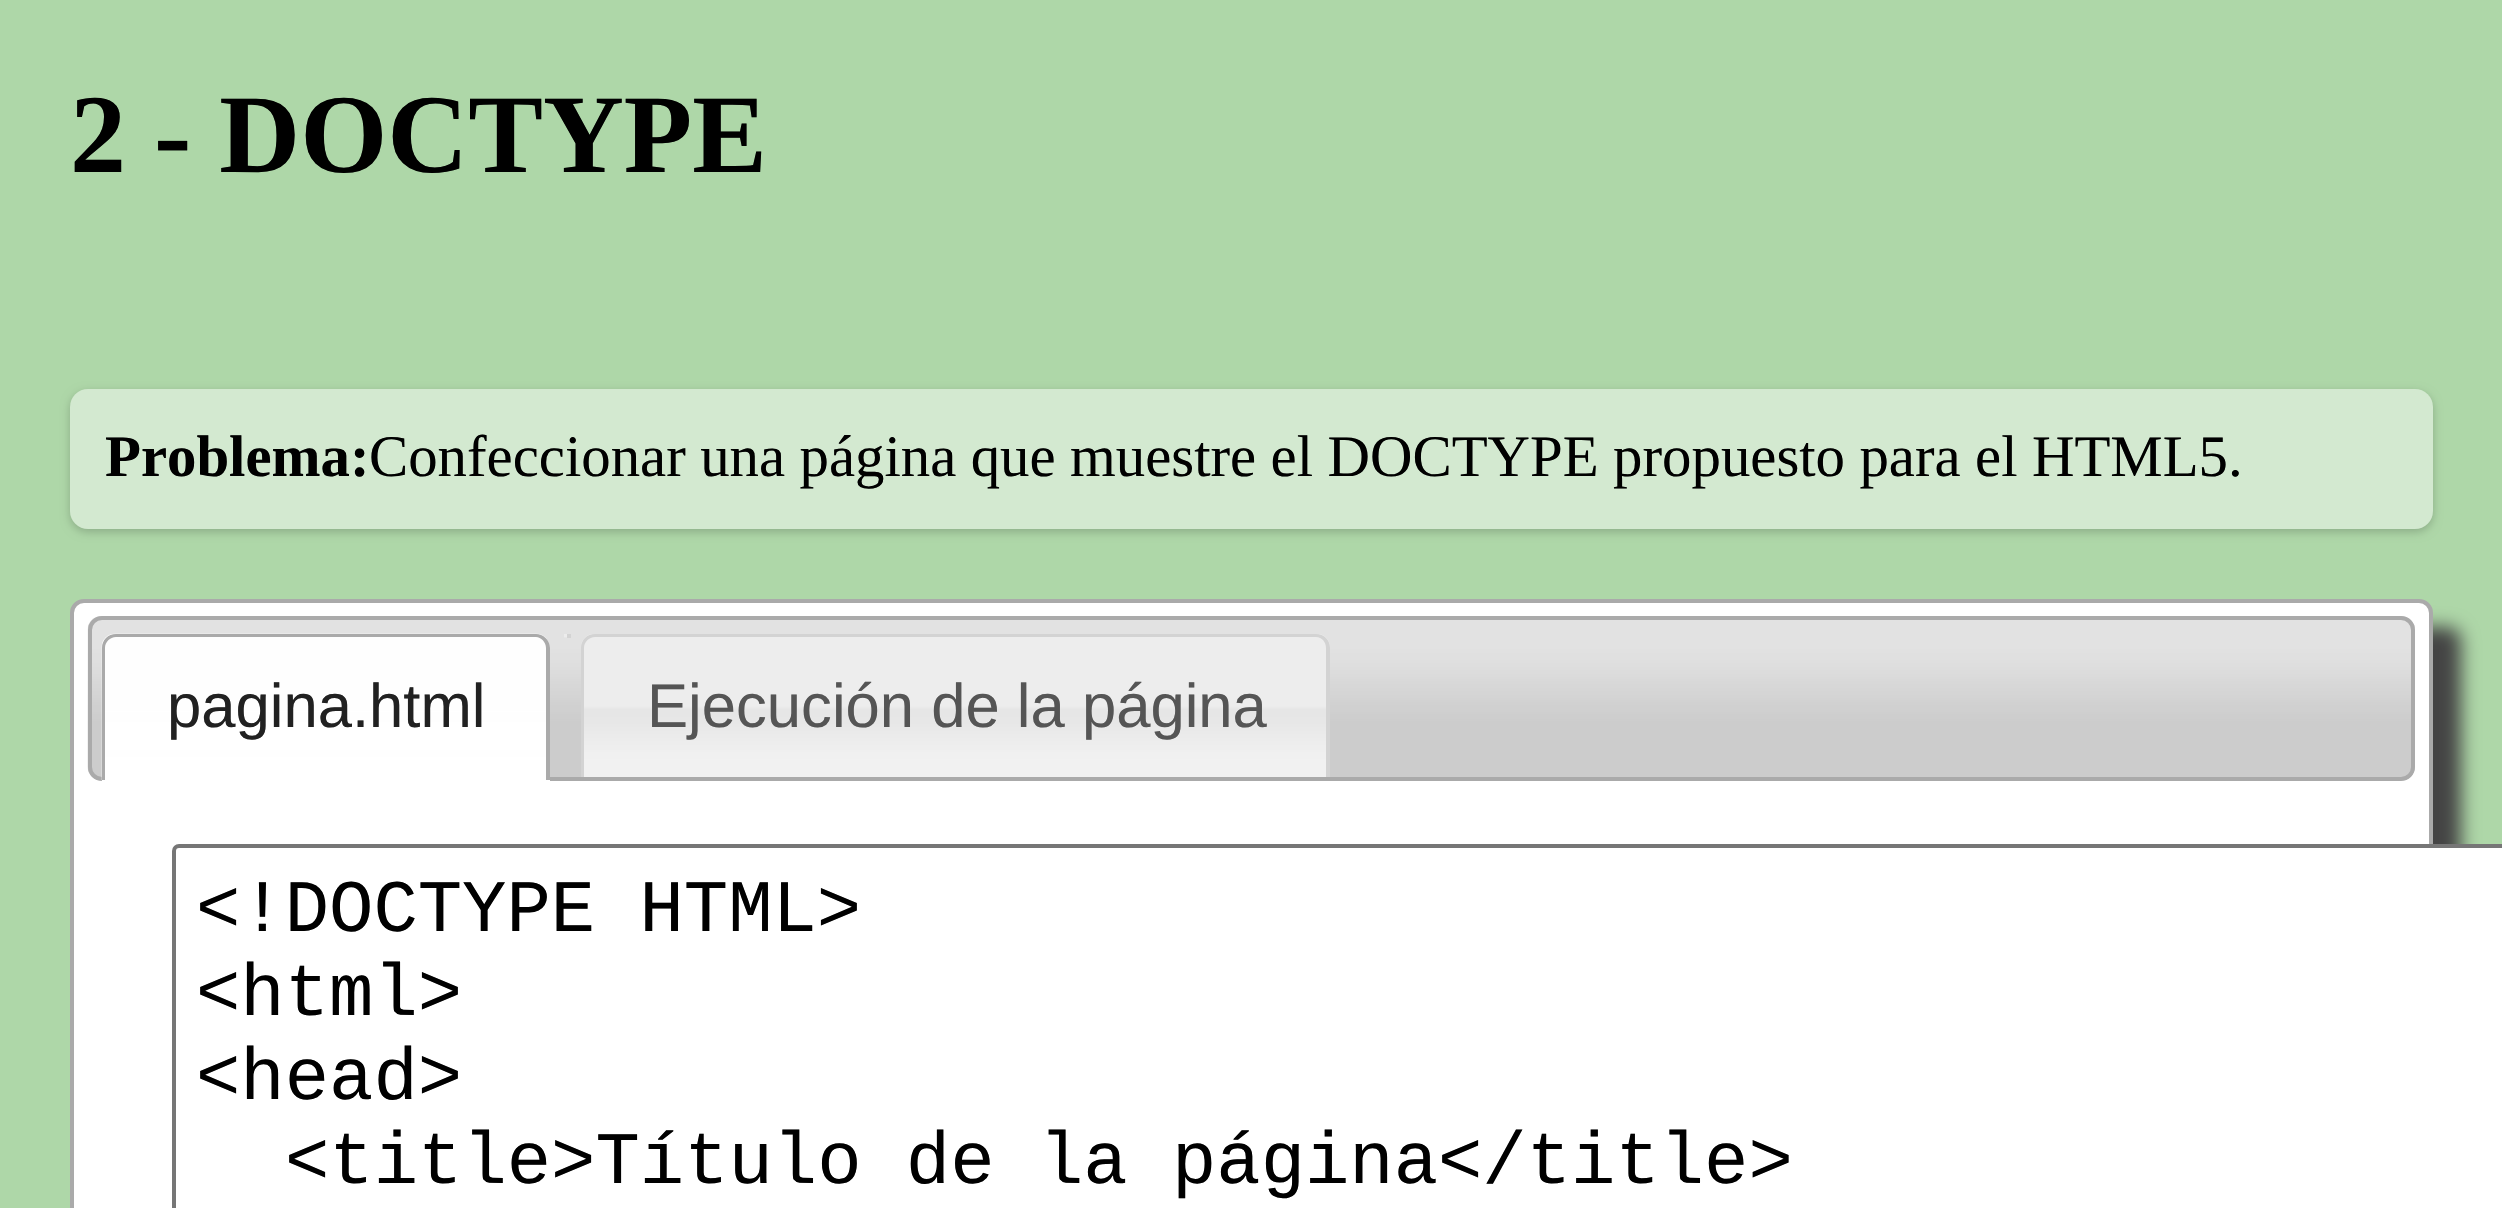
static SkFont makeFont(const char* family, int weight, float size, bool italic = false) {
  SkFontStyle style(weight, SkFontStyle::kNormal_Width,
    italic ? SkFontStyle::kItalic_Slant : SkFontStyle::kUpright_Slant);
  SkFont result(fontMgr->matchFamilyStyle(family, style), size);
  result.setSubpixel(true);
  return result;
}

static void text(SkCanvas* c, const char* s, float x, float y, const SkFont& font, SkColor color) {
  SkPaint ink(SkColor4f::FromColor(color));
  ink.setAntiAlias(true);
  c->drawString(s, x, y, font, ink);
}

static void spacedText(SkCanvas* c, const char* s, float x, float y, const SkFont& font, const SkPaint& ink, float letter, float word) {
  std::vector<SkGlyphID> glyphs(font.countText(s, strlen(s), SkTextEncoding::kUTF8));
  std::vector<float> xs(glyphs.size());
  font.textToGlyphs(s, strlen(s), SkTextEncoding::kUTF8, glyphs);
  font.getXPos(glyphs, xs, x);
  float extra = 0;
  for (size_t i = 0; i < glyphs.size(); i++) {
    xs[i] += extra;
    extra += letter + word * (glyphs[i] == font.unicharToGlyph(' '));
  }
  c->drawTextBlob(SkTextBlob::MakeFromPosHGlyphs(glyphs, xs, y, font), 0, 0, ink);
}

static void box(SkCanvas* c, float l, float t, float r, float b, SkColor color) {
  SkPaint ink(SkColor4f::FromColor(color));
  ink.setAntiAlias(true);
  c->drawRect(SkRect::MakeLTRB(l, t, r, b), ink);
}

static void roundBox(SkCanvas* c, float l, float t, float r, float b, float radius, SkColor color) {
  SkPaint ink(SkColor4f::FromColor(color));
  ink.setAntiAlias(true);
  c->drawRoundRect(SkRect::MakeLTRB(l, t, r, b), radius, radius, ink);
}

static void picture(SkCanvas* c, const char* path, float l, float t, float r, float b) {
  auto image = SkImages::DeferredFromEncodedData(SkData::MakeFromFileName(path));
  c->drawImageRect(image, SkRect::MakeLTRB(l, t, r, b), SkSamplingOptions());
}

void draw(SkCanvas* c) {
  SkPaint paint;
  paint.setAntiAlias(true);
  c->clear(0xffaed7a8);
  SkFont face1 = makeFont("Liberation Serif", 700, 112);
  text(c, "2 - DOCTYPE", 70, 172, face1, 0xff000000);
  paint.setColor(0x33000000);
  paint.setMaskFilter(SkMaskFilter::MakeBlur(kNormal_SkBlurStyle, 5));
  c->drawRoundRect(SkRect::MakeLTRB(70, 392, 2433, 532), 18, 18, paint);
  paint.setMaskFilter(nullptr);
  roundBox(c, 70, 389, 2433, 529, 18, 0xffd3e9d0);
  SkFont face2 = makeFont("Liberation Serif", 700, 58.8f);
  text(c, "Problema:", 105, 476, face2, 0xff000000);
  SkFont face3 = makeFont("Liberation Serif", 400, 58.8f);
  paint.setColor(0xff000000);
  spacedText(c, "Confeccionar una página que muestre el DOCTYPE propuesto para el HTML5.", 369, 476, face3, paint, 0, -0.25f);
  paint.setColor(0xff444444);
  paint.setMaskFilter(SkMaskFilter::MakeBlur(kNormal_SkBlurStyle, 9));
  c->drawRoundRect(SkRect::MakeLTRB(98, 627, 2461, 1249), 14, 14, paint);
  paint.setMaskFilter(nullptr);
  paint.setColor(0xffffffff);
  c->drawRoundRect(SkRect::MakeLTRB(72, 601, 2431, 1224), 12, 12, paint);
  paint.setStyle(SkPaint::kStroke_Style);
  paint.setStrokeWidth(4);
  paint.setColor(0xffaaaaaa);
  c->drawRoundRect(SkRect::MakeLTRB(72, 601, 2431, 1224), 12, 12, paint);
  picture(c, "img_01.png", 87, 616, 2415, 780);
  c->drawRoundRect(SkRect::MakeLTRB(90, 618, 2413, 779), 12, 12, paint);
  box(c, 564, 637, 571, 638, 0xffe6e6e6);
  box(c, 564, 634, 570, 637, 0xffececec);
  box(c, 567, 634, 571, 638, 0xffd3d3d3);
  paint.setStyle(SkPaint::kFill_Style);
  paint.setColor(0xffffffff);
  c->drawPath(SkPathBuilder().moveTo(116, 634).lineTo(536, 634).cubicTo(543.5f, 634, 550, 640.5f, 550, 648).lineTo(550, 781).lineTo(102, 781).lineTo(102, 648).cubicTo(102, 640.5f, 108.5f, 634, 116, 634).close().detach(), paint);
  picture(c, "img_02.png", 101, 633, 547, 781);
  paint.setColor(0xffaaaaaa);
  c->drawPath(SkPathBuilder(SkPathFillType::kEvenOdd).moveTo(116, 634).lineTo(536, 634).cubicTo(543, 634, 550, 640, 550, 648).lineTo(550, 780).lineTo(102, 780).lineTo(102, 648).cubicTo(102, 640, 108, 634, 116, 634).close().moveTo(116, 637).lineTo(536, 637).cubicTo(541, 637, 546, 642, 546, 648).lineTo(546, 780).lineTo(105, 780).lineTo(105, 648).cubicTo(105, 642, 110, 637, 116, 637).close().detach(), paint);
  SkFont face4 = makeFont("Liberation Sans", 400, 61.6f);
  text(c, "pagina.html", 167, 727, face4, 0xff212121);
  picture(c, "img_03.png", 581, 634, 1330, 777);
  paint.setColor(0xffd3d3d3);
  c->drawPath(SkPathBuilder(SkPathFillType::kEvenOdd).moveTo(595, 634).lineTo(1316, 634).cubicTo(1324, 634, 1330, 640, 1330, 648).lineTo(1330, 777).lineTo(581, 777).lineTo(581, 648).cubicTo(581, 640, 587, 634, 595, 634).close().moveTo(595, 637).lineTo(1316, 637).cubicTo(1322, 637, 1326, 642, 1326, 648).lineTo(1326, 777).lineTo(584, 777).lineTo(584, 648).cubicTo(584, 642, 589, 637, 595, 637).close().detach(), paint);
  text(c, "Ejecución de la página", 647, 727, face4, 0xff555555);
  paint.setColor(0xffffffff);
  c->drawRoundRect(SkRect::MakeLTRB(174, 846, 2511, 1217), 5, 5, paint);
  paint.setStyle(SkPaint::kStroke_Style);
  paint.setColor(0xff767676);
  c->drawRoundRect(SkRect::MakeLTRB(174, 846, 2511, 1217), 5, 5, paint);
  SkFont face5 = makeFont("Liberation Mono", 400, 73.9f);
  text(c, "<!DOCTYPE HTML>", 196, 931, face5, 0xff000000);
  text(c, "<html>", 196, 1015, face5, 0xff000000);
  text(c, "<head>", 196, 1099, face5, 0xff000000);
  text(c, "<title>Título de la página</title>", 285, 1183, face5, 0xff000000);
}
